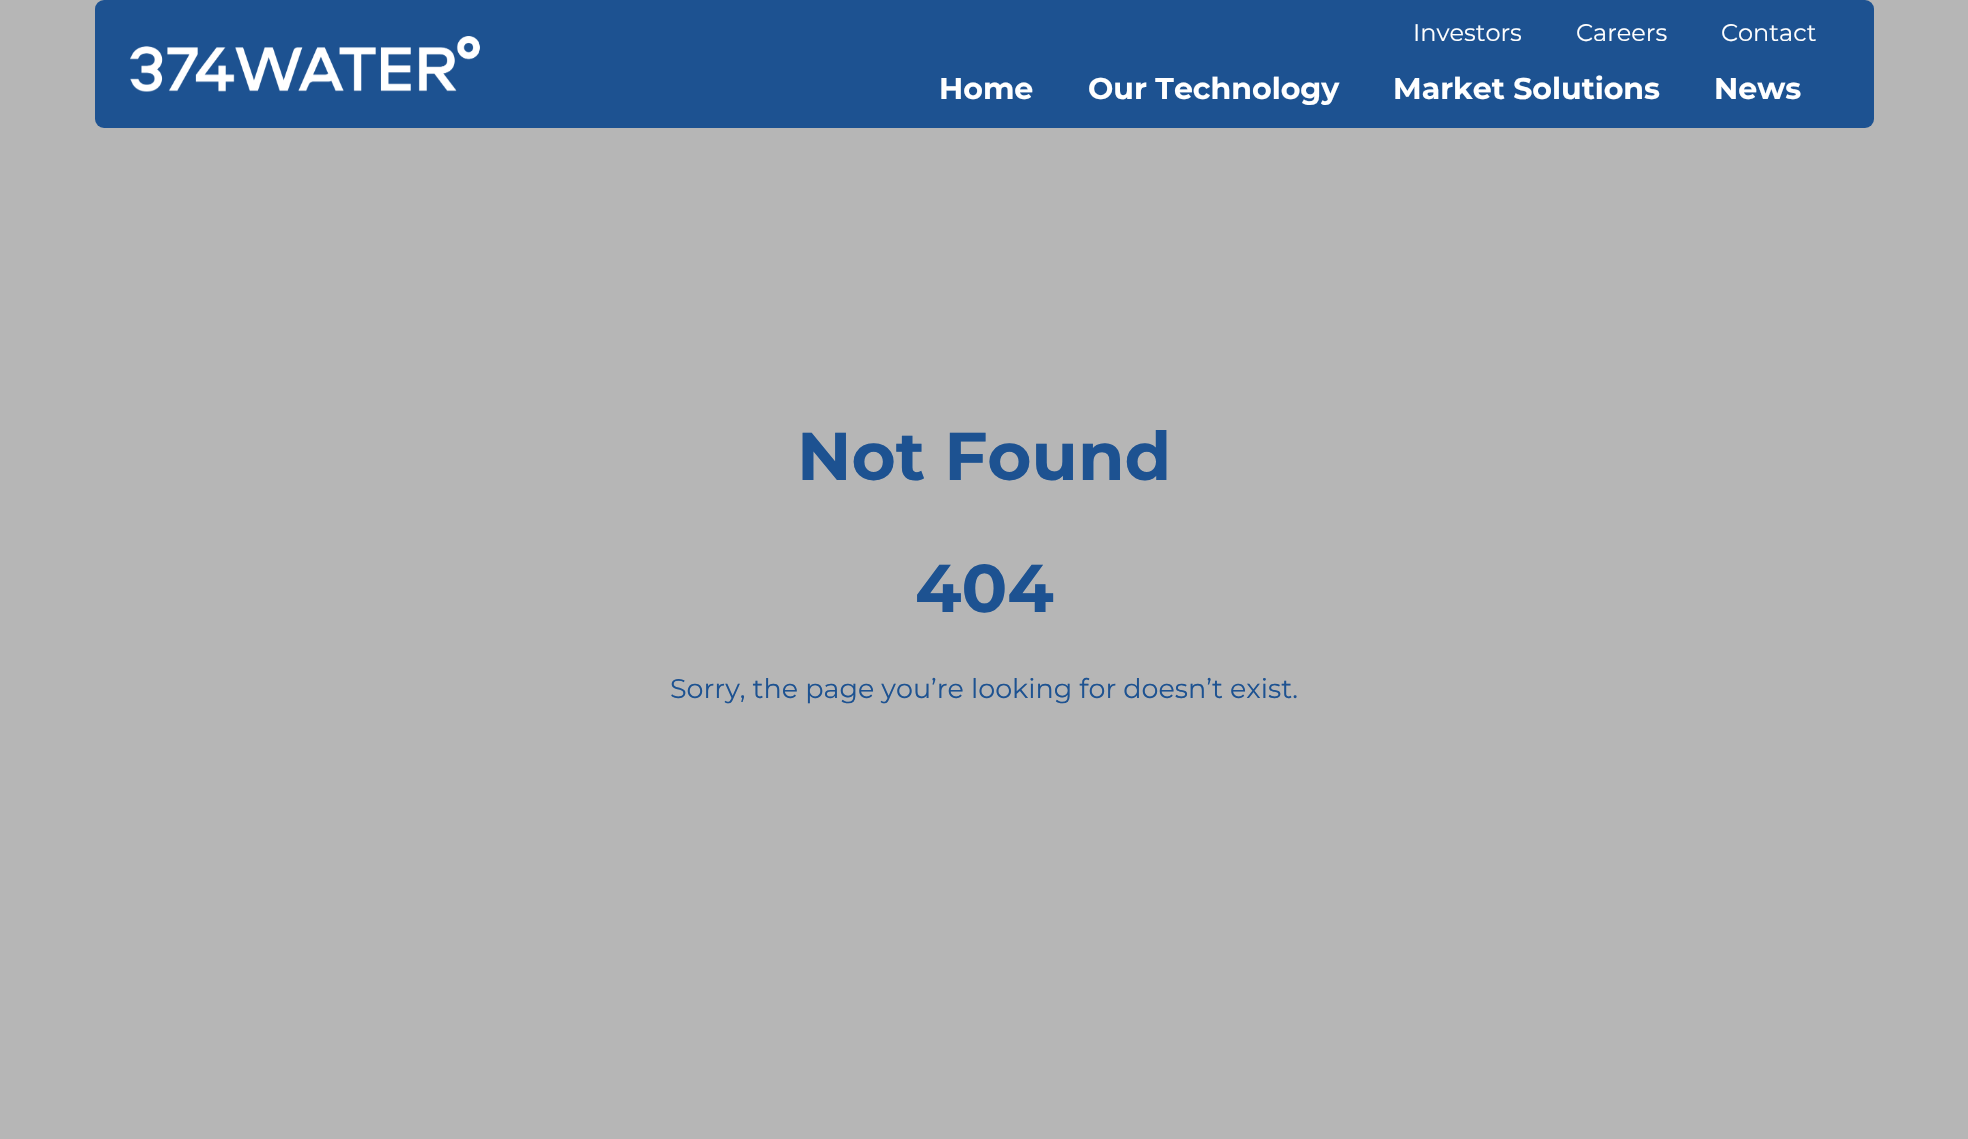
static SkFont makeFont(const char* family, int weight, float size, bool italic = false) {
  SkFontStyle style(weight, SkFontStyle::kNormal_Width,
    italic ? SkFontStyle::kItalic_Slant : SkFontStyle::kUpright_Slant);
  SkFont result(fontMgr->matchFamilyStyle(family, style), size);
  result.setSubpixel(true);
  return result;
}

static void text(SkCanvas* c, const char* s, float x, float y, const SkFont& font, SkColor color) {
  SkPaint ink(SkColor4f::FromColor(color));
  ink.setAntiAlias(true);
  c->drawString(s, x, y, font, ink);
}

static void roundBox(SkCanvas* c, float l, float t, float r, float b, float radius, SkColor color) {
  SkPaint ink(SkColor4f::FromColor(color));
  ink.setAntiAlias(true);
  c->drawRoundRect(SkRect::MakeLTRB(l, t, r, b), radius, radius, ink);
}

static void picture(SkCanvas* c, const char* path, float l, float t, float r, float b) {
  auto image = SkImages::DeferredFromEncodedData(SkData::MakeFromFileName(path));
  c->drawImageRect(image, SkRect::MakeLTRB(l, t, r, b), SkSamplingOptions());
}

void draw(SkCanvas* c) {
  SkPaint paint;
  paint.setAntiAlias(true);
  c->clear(0xffb6b6b6);
  roundBox(c, 95, 0, 1874, 128, 9, 0xff1d5291);
  picture(c, "img_01.png", 130, 36, 480, 92);
  SkFont face1 = makeFont("Montserrat", 400, 24);
  text(c, "Investors", 1413, 41, face1, 0xffffffff);
  text(c, "Careers", 1576, 41, face1, 0xffffffff);
  text(c, "Contact", 1721, 41, face1, 0xffffffff);
  SkFont face2 = makeFont("Montserrat", 700, 30);
  text(c, "Home", 939, 99, face2, 0xffffffff);
  text(c, "Our Technology", 1088, 99, face2, 0xffffffff);
  text(c, "Market Solutions", 1393, 99, face2, 0xffffffff);
  text(c, "News", 1714, 99, face2, 0xffffffff);
  SkFont face3 = makeFont("Montserrat", 700, 67.5f);
  text(c, "Not Found", 797, 480, face3, 0xff1d5291);
  text(c, "404", 915, 612, face3, 0xff1d5291);
  SkFont face4 = makeFont("Montserrat", 400, 27);
  text(c, "Sorry, the page you’re looking for doesn’t exist.", 670, 698, face4, 0xff1d5291);
}
